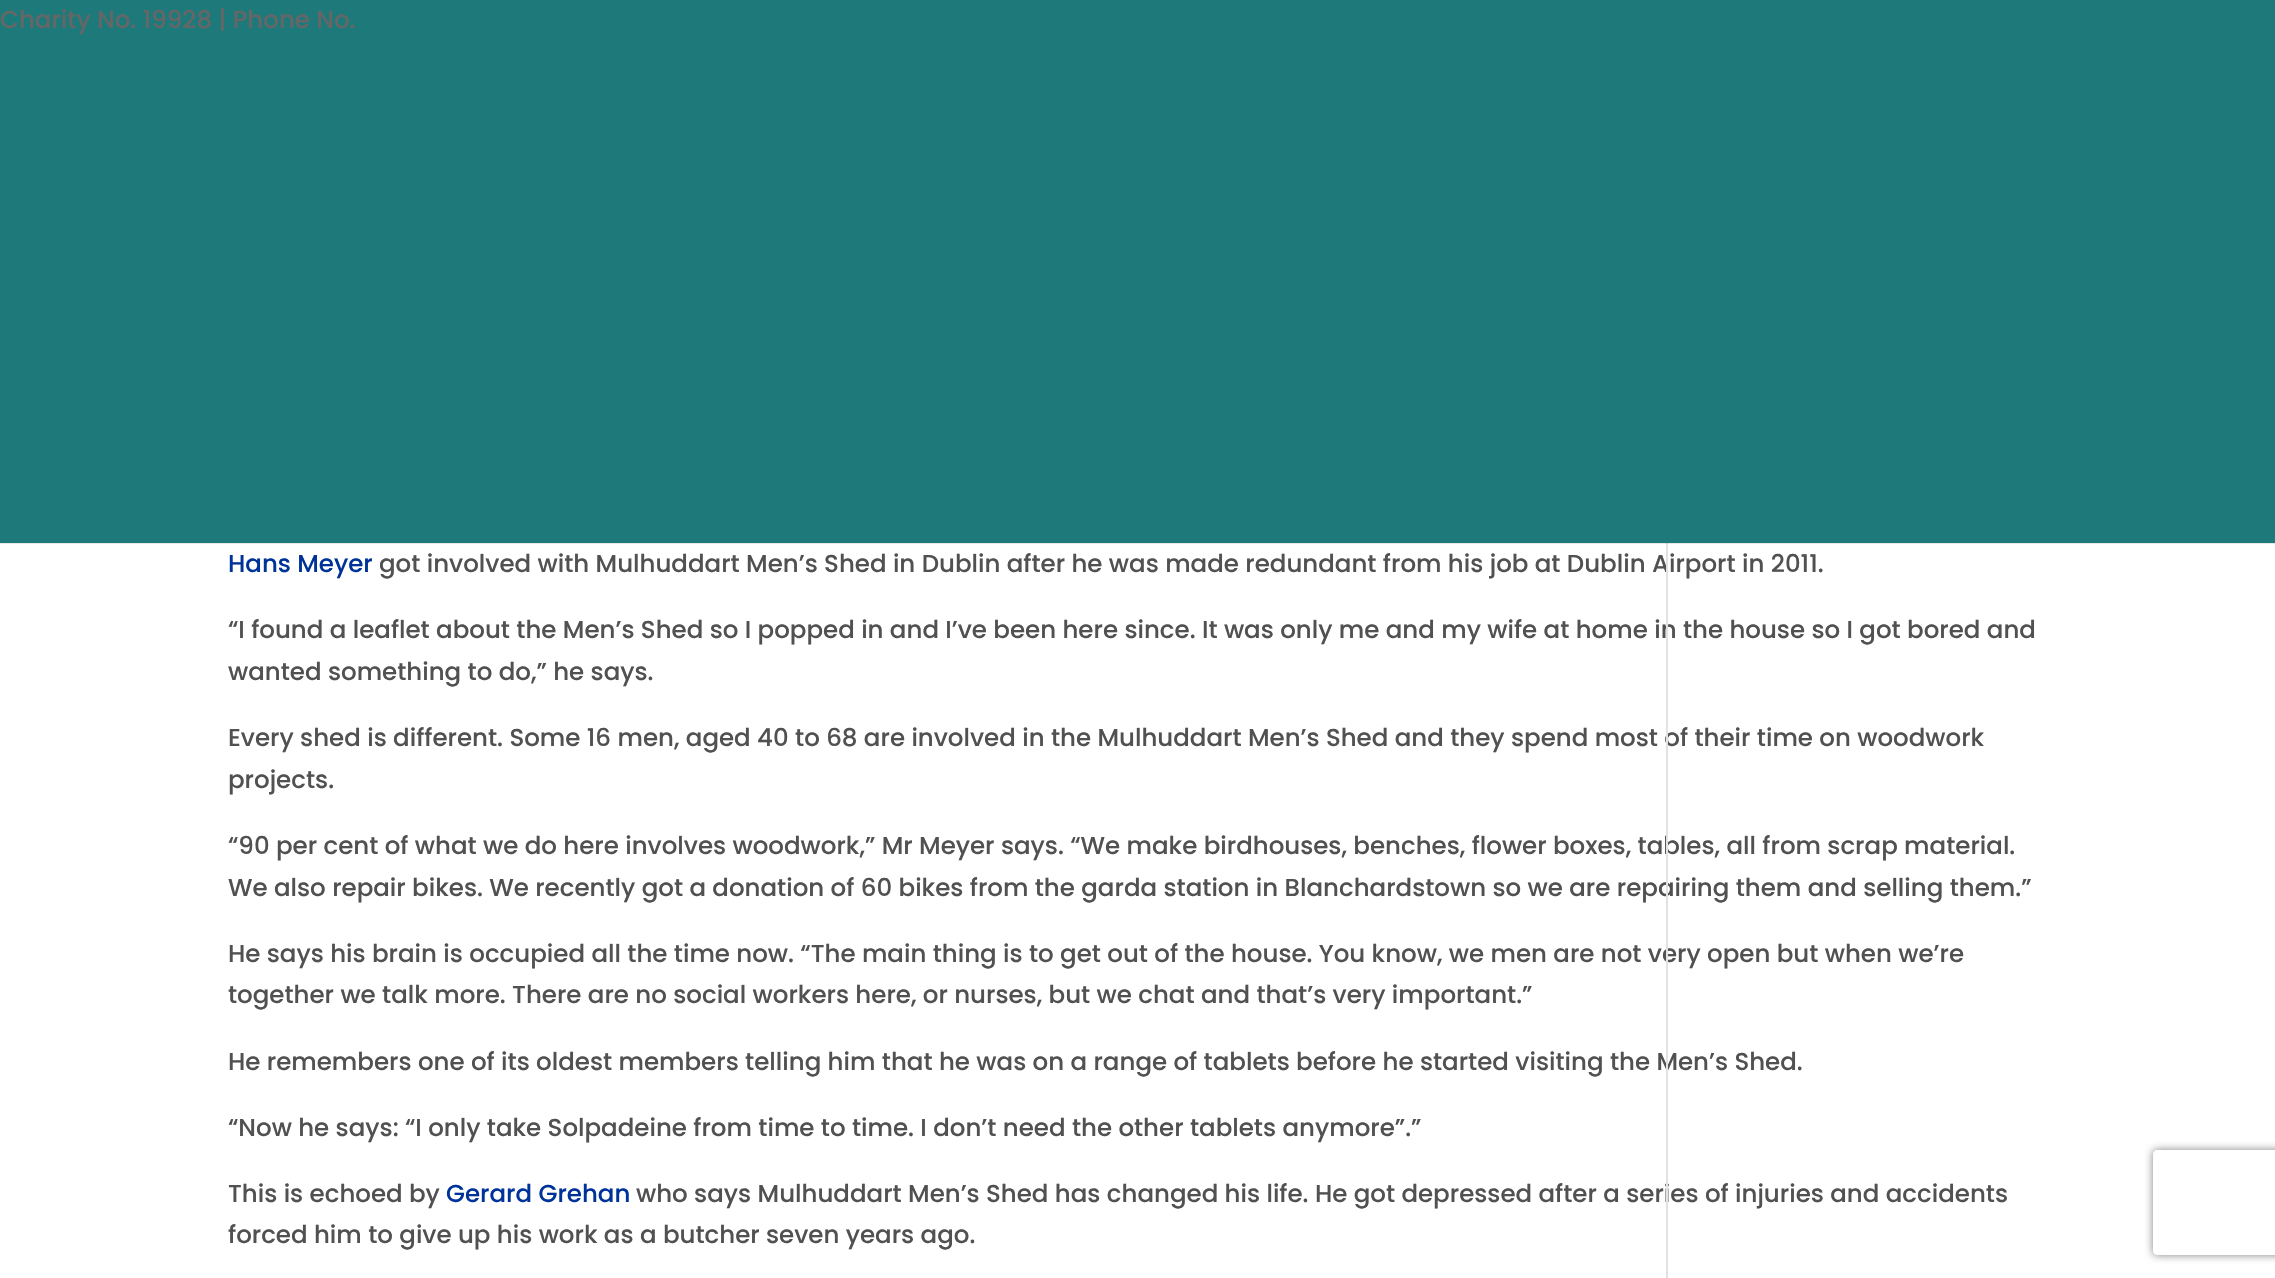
static SkFont makeFont(const char* family, int weight, float size, bool italic = false) {
  SkFontStyle style(weight, SkFontStyle::kNormal_Width,
    italic ? SkFontStyle::kItalic_Slant : SkFontStyle::kUpright_Slant);
  SkFont result(fontMgr->matchFamilyStyle(family, style), size);
  result.setSubpixel(true);
  return result;
}

static void text(SkCanvas* c, const char* s, float x, float y, const SkFont& font, SkColor color) {
  SkPaint ink(SkColor4f::FromColor(color));
  ink.setAntiAlias(true);
  c->drawString(s, x, y, font, ink);
}

static void box(SkCanvas* c, float l, float t, float r, float b, SkColor color) {
  SkPaint ink(SkColor4f::FromColor(color));
  ink.setAntiAlias(true);
  c->drawRect(SkRect::MakeLTRB(l, t, r, b), ink);
}

void draw(SkCanvas* c) {
  SkPaint paint;
  paint.setAntiAlias(true);
  c->clear(0xffffffff);
  box(c, 0, 543, 2275, 544, 0xffe6e6e6);
  box(c, 0, 0, 2275, 543, 0xff1d797a);
  SkFont face1 = makeFont("Poppins", 500, 24.5f);
  text(c, "Charity No. 19928 | Phone No.", 0, 28, face1, 0xff666666);
  text(c, "got involved with Mulhuddart Men’s Shed in Dublin after he was made redundant from his job at Dublin Airport in 2011.", 379, 572, face1, 0xff515151);
  text(c, "“I found a leaflet about the Men’s Shed so I popped in and I’ve been here since. It was only me and my wife at home in the house so I got bored and", 228, 638, face1, 0xff515151);
  text(c, "Every shed is different. Some 16 men, aged 40 to 68 are involved in the Mulhuddart Men’s Shed and they spend most of their time on woodwork", 228, 746, face1, 0xff515151);
  text(c, "“90 per cent of what we do here involves woodwork,” Mr Meyer says. “We make birdhouses, benches, flower boxes, tables, all from scrap material.", 228, 854, face1, 0xff515151);
  text(c, "We also repair bikes. We recently got a donation of 60 bikes from the garda station in Blanchardstown so we are repairing them and selling them.”", 228, 896, face1, 0xff515151);
  text(c, "He says his brain is occupied all the time now. “The main thing is to get out of the house. You know, we men are not very open but when we’re", 228, 962, face1, 0xff515151);
  text(c, "He remembers one of its oldest members telling him that he was on a range of tablets before he started visiting the Men’s Shed.", 228, 1070, face1, 0xff515151);
  text(c, "who says Mulhuddart Men’s Shed has changed his life. He got depressed after a series of injuries and accidents", 636, 1202, face1, 0xff515151);
  box(c, 1666, 544, 1668, 1278, 0xffe2e2e2);
  box(c, 1666, 543, 1668, 544, 0xffcbcbcb);
  text(c, "Hans Meyer", 228, 572, face1, 0xff003399);
  text(c, "wanted something to do,” he says.", 228, 680, face1, 0xff515151);
  text(c, "projects.", 228, 788, face1, 0xff515151);
  text(c, "together we talk more. There are no social workers here, or nurses, but we chat and that’s very important.”", 228, 1003, face1, 0xff515151);
  text(c, "“Now he says: “I only take Solpadeine from time to time. I don’t need the other tablets anymore”.”", 228, 1136, face1, 0xff515151);
  text(c, "This is echoed by", 228, 1202, face1, 0xff515151);
  text(c, "Gerard Grehan", 446, 1202, face1, 0xff003399);
  text(c, "forced him to give up his work as a butcher seven years ago.", 228, 1243, face1, 0xff515151);
  c->save();
  c->clipPath(SkPathBuilder(SkPathFillType::kEvenOdd).moveTo(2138, 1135).lineTo(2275, 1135).lineTo(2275, 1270).lineTo(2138, 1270).close().moveTo(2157, 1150).lineTo(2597, 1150).cubicTo(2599, 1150, 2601, 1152, 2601, 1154).lineTo(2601, 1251).cubicTo(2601, 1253, 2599, 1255, 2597, 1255).lineTo(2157, 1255).cubicTo(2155, 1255, 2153, 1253, 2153, 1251).lineTo(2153, 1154).cubicTo(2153, 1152, 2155, 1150, 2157, 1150).close().detach(), true);
  paint.setColor(0xff808080);
  paint.setMaskFilter(SkMaskFilter::MakeBlur(kNormal_SkBlurStyle, 4.5f));
  c->drawRoundRect(SkRect::MakeLTRB(2153, 1150, 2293, 1255), 4, 4, paint);
  paint.setMaskFilter(nullptr);
  c->restore();
}
